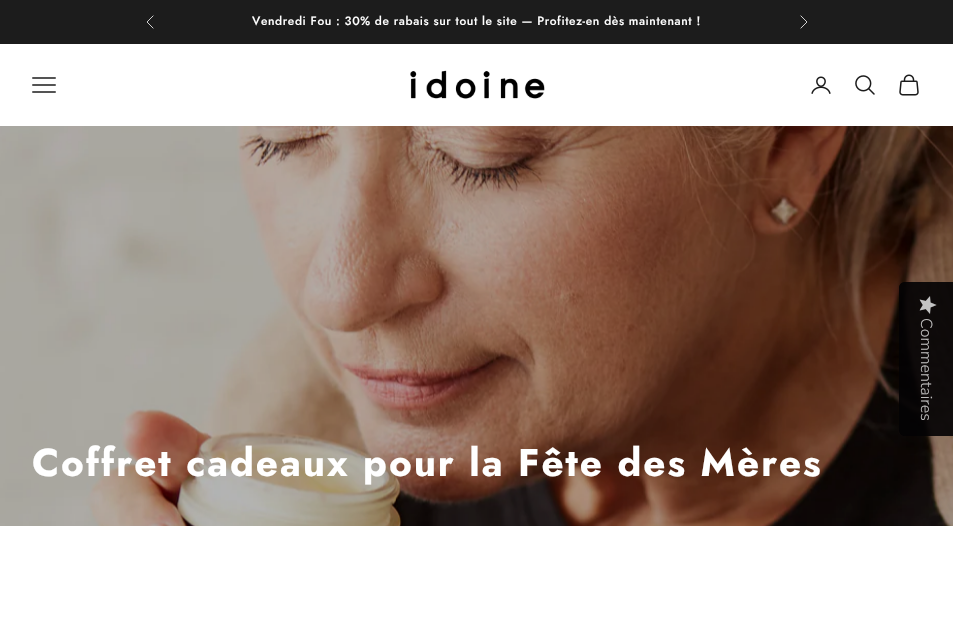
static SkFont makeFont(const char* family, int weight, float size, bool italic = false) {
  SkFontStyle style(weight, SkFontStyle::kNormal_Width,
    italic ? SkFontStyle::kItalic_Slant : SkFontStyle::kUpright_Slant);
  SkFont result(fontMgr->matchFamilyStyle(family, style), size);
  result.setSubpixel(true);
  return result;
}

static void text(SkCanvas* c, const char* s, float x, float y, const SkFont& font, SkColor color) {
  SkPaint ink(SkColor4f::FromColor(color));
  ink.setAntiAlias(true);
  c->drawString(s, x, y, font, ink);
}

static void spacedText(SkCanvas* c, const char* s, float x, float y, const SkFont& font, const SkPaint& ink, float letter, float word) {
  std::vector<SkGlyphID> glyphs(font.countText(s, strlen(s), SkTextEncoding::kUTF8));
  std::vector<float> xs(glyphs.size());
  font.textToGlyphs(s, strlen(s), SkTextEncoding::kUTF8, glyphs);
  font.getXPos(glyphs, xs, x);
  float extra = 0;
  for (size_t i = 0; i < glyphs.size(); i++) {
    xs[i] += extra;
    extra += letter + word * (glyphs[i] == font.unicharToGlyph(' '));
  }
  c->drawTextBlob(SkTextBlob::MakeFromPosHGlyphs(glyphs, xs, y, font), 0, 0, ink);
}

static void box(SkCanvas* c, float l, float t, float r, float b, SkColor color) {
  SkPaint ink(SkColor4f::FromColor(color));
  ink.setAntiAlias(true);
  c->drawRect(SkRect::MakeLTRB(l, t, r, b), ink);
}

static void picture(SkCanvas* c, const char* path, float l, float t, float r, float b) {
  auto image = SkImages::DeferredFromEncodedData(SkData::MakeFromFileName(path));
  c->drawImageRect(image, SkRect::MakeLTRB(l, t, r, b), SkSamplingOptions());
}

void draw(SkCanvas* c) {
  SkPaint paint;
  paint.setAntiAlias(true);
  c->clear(0xffffffff);
  box(c, 0, 0, 953, 44, 0xff1c1c1c);
  paint.setStyle(SkPaint::kStroke_Style);
  paint.setStrokeWidth(0.8f);
  paint.setStrokeCap(SkPaint::kSquare_Cap);
  paint.setColor(0xffffffff);
  c->drawPath(SkPathBuilder().moveTo(153, 16).lineTo(147, 22).lineTo(153, 28).detach(), paint);
  SkFont face1 = makeFont("Jost", 500, 12);
  paint.setStyle(SkPaint::kFill_Style);
  spacedText(c, "Vendredi Fou : 30% de rabais sur tout le site — Profitez-en dès maintenant !", 252, 25, face1, paint, 0.6f, 0);
  paint.setStyle(SkPaint::kStroke_Style);
  c->drawPath(SkPathBuilder().moveTo(801, 28).lineTo(807, 22).lineTo(801, 16).detach(), paint);
  paint.setStrokeWidth(1.5f);
  paint.setColor(0xff1c1c1c);
  c->drawPath(SkPathBuilder().moveTo(33, 92).lineTo(55, 92).moveTo(33, 85).lineTo(55, 85).moveTo(33, 78).lineTo(55, 78).detach(), paint);
  picture(c, "img_01.png", 410, 70, 545, 99);
  picture(c, "img_02.png", 811, 76, 831, 94);
  picture(c, "img_03.png", 855, 75, 875, 95);
  picture(c, "img_04.png", 899, 74, 919, 96);
  picture(c, "img_07.png", 0, 126, 953, 526);
  paint.setStyle(SkPaint::kFill_Style);
  paint.setColor(0xb3030203);
  c->drawPath(SkPathBuilder().moveTo(953, 282).lineTo(953, 436).lineTo(905, 436).cubicTo(902, 436, 899, 434, 899, 430).lineTo(899, 288).cubicTo(899, 284, 902, 282, 905, 282).close().detach(), paint);
  picture(c, "img_05.png", 919, 296, 937, 314);
  c->drawPath(SkPathBuilder().moveTo(953, 282).lineTo(953, 436).lineTo(905, 436).cubicTo(902, 436, 899, 434, 899, 430).lineTo(899, 288).cubicTo(899, 284, 902, 282, 905, 282).close().detach(), paint);
  picture(c, "img_06.png", 919, 296, 937, 314);
  SkFont face2 = makeFont("Nunito Sans", 300, 16);
  c->save();
  c->rotate(90, 921, 318);
  text(c, "Commentaires", 921, 318, face2, 0xffbcbbbb);
  c->restore();
  SkFont face3 = makeFont("Jost", 700, 38.7f);
  paint.setColor(0xffffffff);
  spacedText(c, "Coffret cadeaux pour la Fête des Mères", 32, 476, face3, paint, 1.95f, 0);
}
